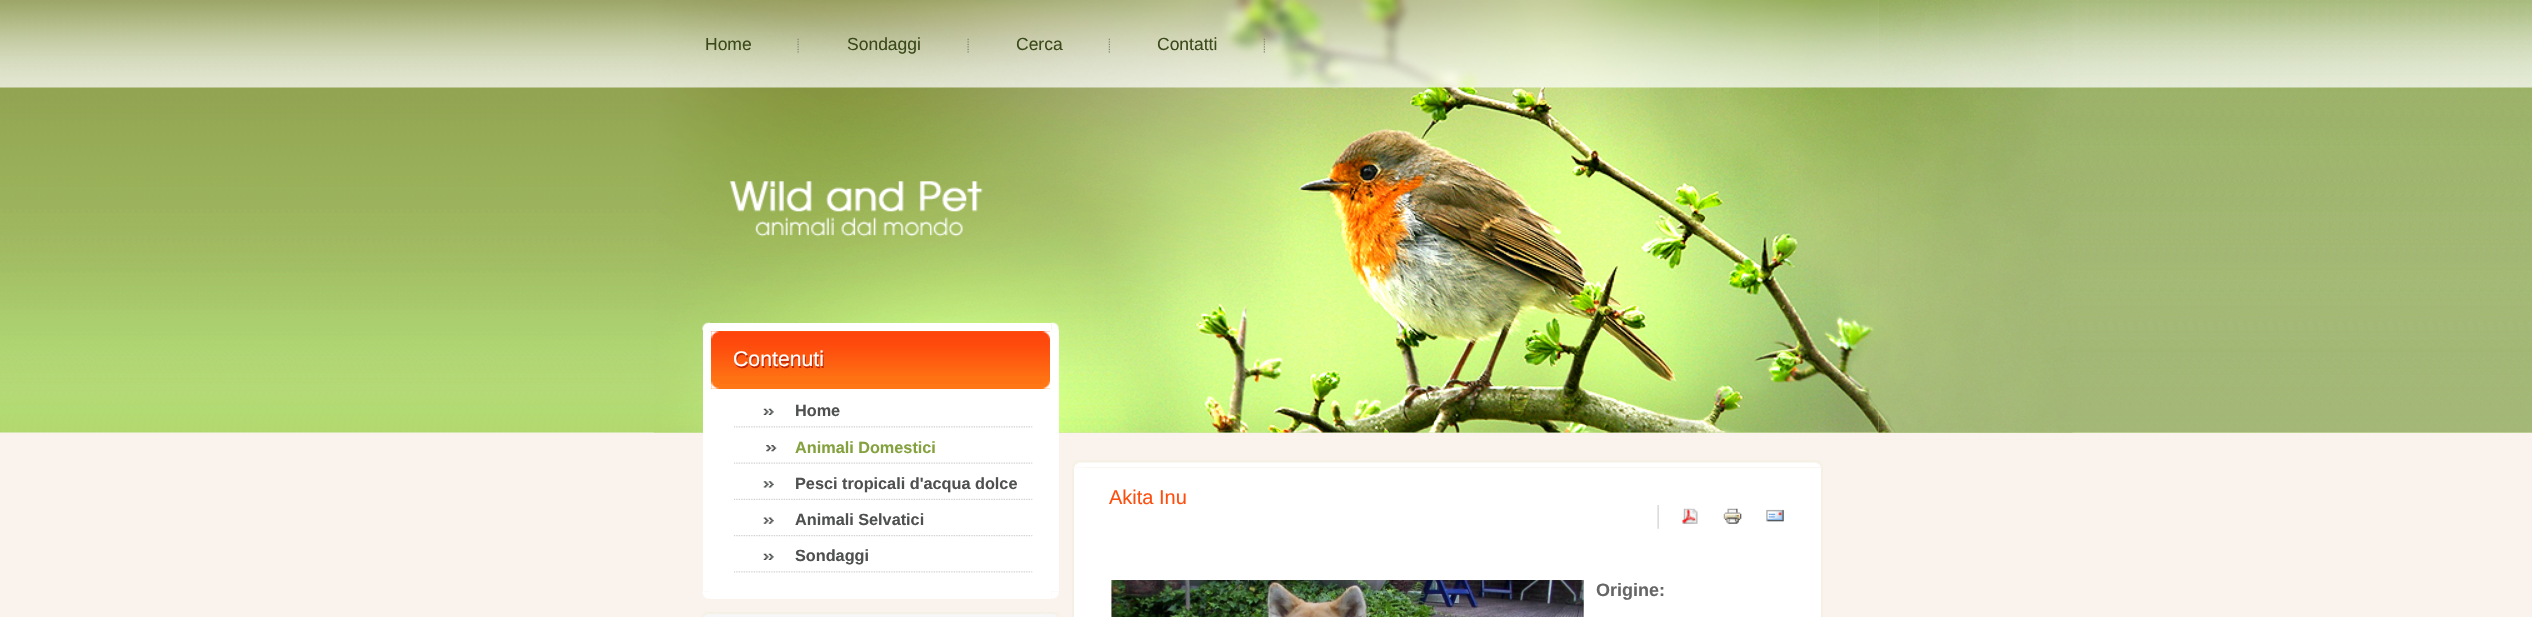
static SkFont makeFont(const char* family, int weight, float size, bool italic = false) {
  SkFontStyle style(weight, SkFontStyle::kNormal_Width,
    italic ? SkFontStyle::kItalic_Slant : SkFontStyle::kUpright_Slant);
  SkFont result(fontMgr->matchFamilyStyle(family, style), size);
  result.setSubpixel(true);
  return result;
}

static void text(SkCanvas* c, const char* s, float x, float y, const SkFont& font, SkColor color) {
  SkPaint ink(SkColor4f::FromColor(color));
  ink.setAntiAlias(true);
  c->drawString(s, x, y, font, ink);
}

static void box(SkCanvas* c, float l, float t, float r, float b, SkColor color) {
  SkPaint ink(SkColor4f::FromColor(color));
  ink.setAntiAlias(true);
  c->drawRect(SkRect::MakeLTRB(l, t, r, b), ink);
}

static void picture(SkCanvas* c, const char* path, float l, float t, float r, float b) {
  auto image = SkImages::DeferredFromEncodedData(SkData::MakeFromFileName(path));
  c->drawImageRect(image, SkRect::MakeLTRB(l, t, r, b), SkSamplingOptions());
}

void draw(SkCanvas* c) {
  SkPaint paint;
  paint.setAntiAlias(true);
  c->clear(0xffffffff);
  picture(c, "img_01.png", 0, 0, 2532, 617);
  picture(c, "img_02.png", 653, 0, 1879, 433);
  picture(c, "img_03.png", 797, 38, 799, 53);
  SkFont face1 = makeFont("Liberation Sans", 400, 17.5f);
  text(c, "Home", 705, 50, face1, 0xff3b4a1b);
  picture(c, "img_04.png", 967, 38, 969, 53);
  text(c, "Sondaggi", 847, 50, face1, 0xff3b4a1b);
  picture(c, "img_05.png", 1108, 38, 1110, 53);
  text(c, "Cerca", 1016, 50, face1, 0xff3b4a1b);
  picture(c, "img_06.png", 1263, 38, 1265, 53);
  text(c, "Contatti", 1157, 50, face1, 0xff3b4a1b);
  picture(c, "img_07.png", 729, 181, 983, 237);
  picture(c, "img_08.png", 702, 322, 710, 330);
  picture(c, "img_09.png", 1051, 322, 1059, 330);
  box(c, 710, 323, 1051, 330, 0xffffffff);
  box(c, 703, 330, 1059, 591, 0xffffffff);
  box(c, 711, 331, 1050, 384, 0xffff7214);
  picture(c, "img_10.png", 711, 331, 1050, 376);
  box(c, 711, 384, 1050, 389, 0xffff7815);
  picture(c, "img_11.png", 711, 331, 723, 361);
  picture(c, "img_12.png", 1039, 331, 1050, 340);
  picture(c, "img_13.png", 711, 381, 719, 389);
  picture(c, "img_14.png", 1042, 380, 1050, 389);
  SkFont face2 = makeFont("Liberation Sans", 400, 21.25f);
  text(c, "Contenuti", 734, 368, face2, 0xffbe2405);
  text(c, "Contenuti", 733, 366, face2, 0xffffffff);
  picture(c, "img_15.png", 734, 426, 1033, 428);
  picture(c, "img_16.png", 763, 408, 774, 415);
  SkFont face3 = makeFont("Liberation Sans", 700, 16.25f);
  text(c, "Home", 795, 416, face3, 0xff4f5050);
  picture(c, "img_17.png", 734, 462, 1033, 464);
  picture(c, "img_18.png", 766, 445, 777, 452);
  text(c, "Animali Domestici", 795, 453, face3, 0xff84a13e);
  picture(c, "img_19.png", 733, 498, 1033, 500);
  picture(c, "img_20.png", 763, 481, 774, 488);
  text(c, "Pesci tropicali d'acqua dolce", 795, 489, face3, 0xff4f5050);
  picture(c, "img_21.png", 733, 535, 1033, 537);
  picture(c, "img_22.png", 763, 517, 774, 524);
  text(c, "Animali Selvatici", 795, 525, face3, 0xff4f5050);
  picture(c, "img_15.png", 734, 571, 1033, 573);
  picture(c, "img_16.png", 763, 553, 774, 560);
  text(c, "Sondaggi", 795, 561, face3, 0xff4f5050);
  picture(c, "img_23.png", 702, 591, 710, 599);
  picture(c, "img_24.png", 1051, 591, 1059, 599);
  box(c, 710, 591, 1051, 599, 0xffffffff);
  picture(c, "img_25.png", 701, 611, 714, 617);
  picture(c, "img_26.png", 1047, 612, 1060, 617);
  picture(c, "img_27.png", 714, 612, 1047, 617);
  picture(c, "img_28.png", 1072, 460, 1085, 468);
  picture(c, "img_29.png", 1810, 460, 1823, 468);
  picture(c, "img_30.png", 1085, 460, 1810, 468);
  picture(c, "img_31.png", 1072, 468, 1074, 617);
  picture(c, "img_32.png", 1821, 468, 1823, 617);
  box(c, 1074, 468, 1821, 617, 0xffffffff);
  SkFont face4 = makeFont("Liberation Sans", 400, 20);
  text(c, "Akita Inu", 1109, 504, face4, 0xfffe4e0e);
  picture(c, "img_33.png", 1657, 505, 1659, 529);
  picture(c, "img_34.png", 1682, 508, 1698, 524);
  picture(c, "img_35.png", 1723, 508, 1742, 524);
  picture(c, "img_36.png", 1766, 509, 1784, 522);
  picture(c, "img_37.png", 1111, 580, 1584, 617);
  SkFont face5 = makeFont("Liberation Sans", 700, 18);
  text(c, "Origine:", 1596, 596, face5, 0xff676666);
  picture(c, "img_38.png", 1878, 0, 2532, 433);
  picture(c, "img_39.png", 1878, 0, 2073, 433);
}
